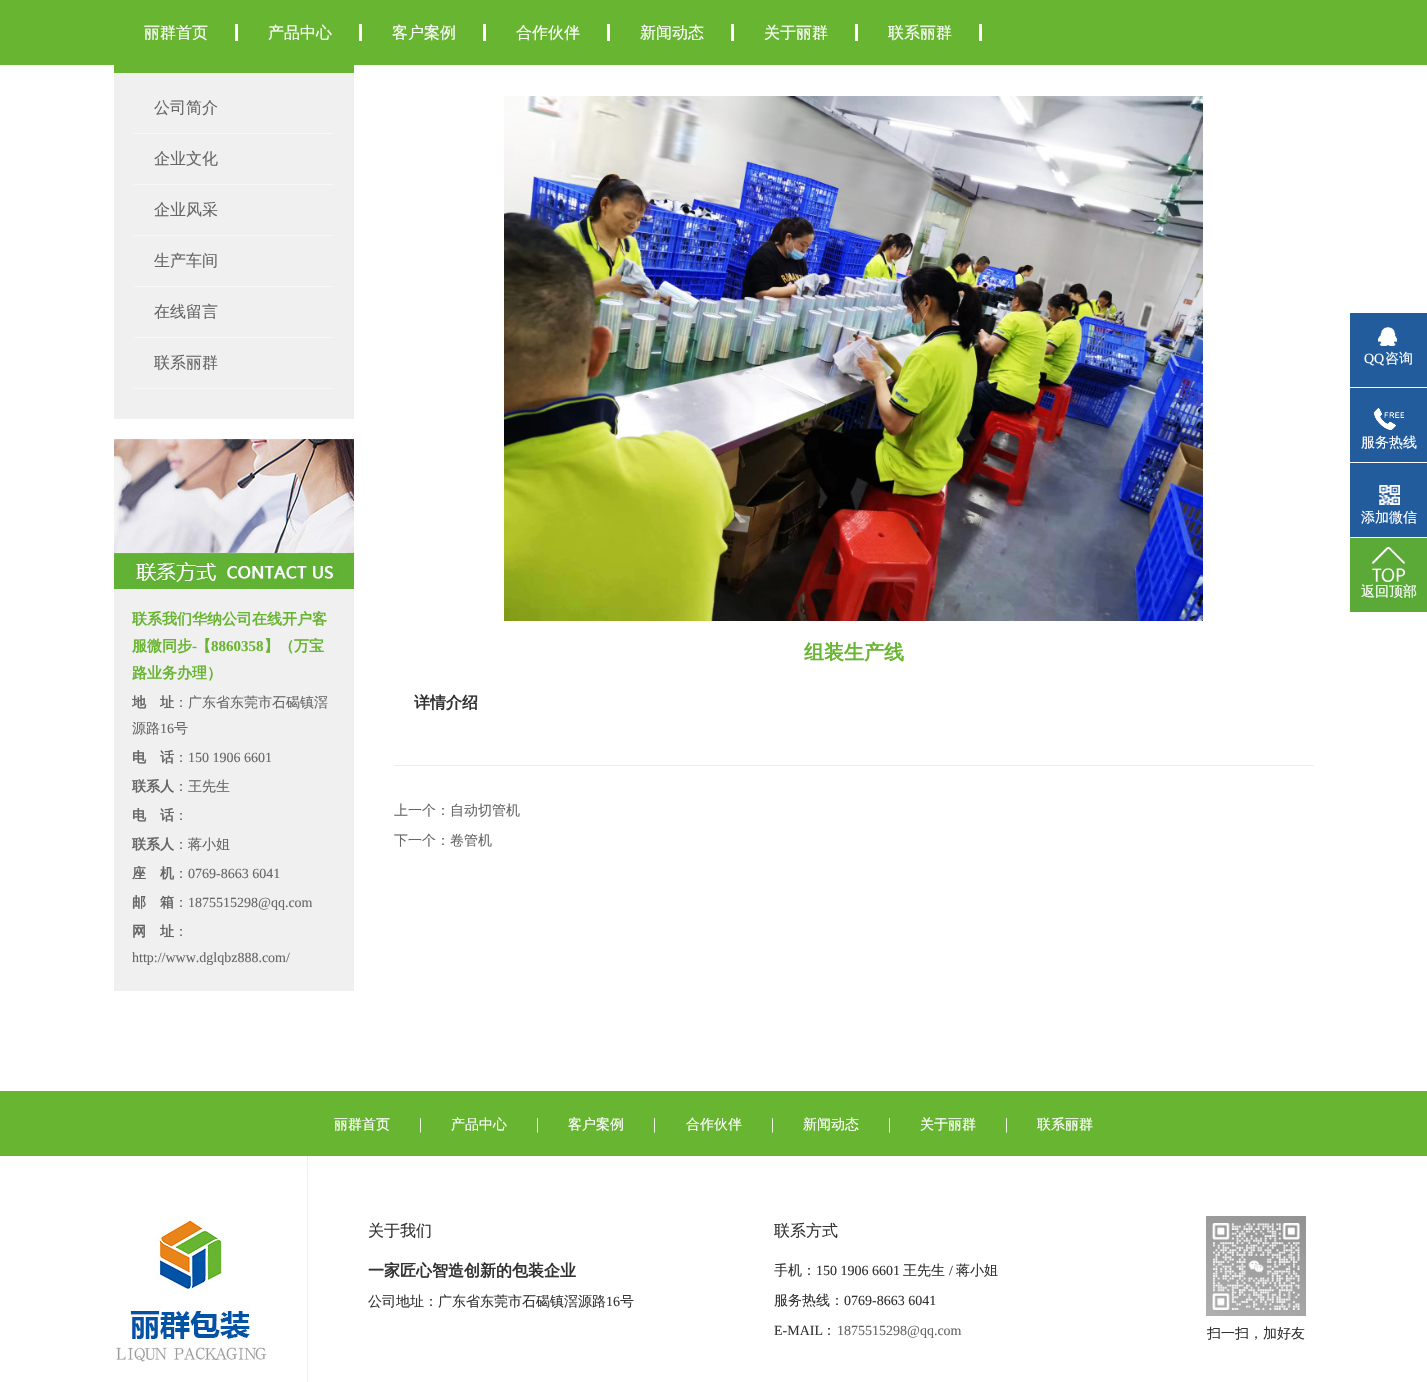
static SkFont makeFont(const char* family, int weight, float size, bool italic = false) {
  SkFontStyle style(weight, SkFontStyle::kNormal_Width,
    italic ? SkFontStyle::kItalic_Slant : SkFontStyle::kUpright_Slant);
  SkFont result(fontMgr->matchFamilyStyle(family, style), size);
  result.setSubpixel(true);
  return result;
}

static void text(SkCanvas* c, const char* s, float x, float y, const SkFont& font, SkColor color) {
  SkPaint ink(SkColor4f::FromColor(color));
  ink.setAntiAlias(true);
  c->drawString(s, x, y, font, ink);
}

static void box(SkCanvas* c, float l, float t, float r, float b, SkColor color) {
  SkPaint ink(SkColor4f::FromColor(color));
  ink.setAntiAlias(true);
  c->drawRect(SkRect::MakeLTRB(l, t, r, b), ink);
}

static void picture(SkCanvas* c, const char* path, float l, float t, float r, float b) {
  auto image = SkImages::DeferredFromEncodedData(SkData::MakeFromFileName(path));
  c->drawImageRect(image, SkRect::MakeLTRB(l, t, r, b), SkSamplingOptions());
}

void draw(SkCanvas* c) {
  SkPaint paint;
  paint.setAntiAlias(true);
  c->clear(0xffffffff);
  box(c, 0, 0, 1427, 65, 0xff68b531);
  box(c, 235, 24, 238, 41, 0xffffffff);
  SkFont face1 = makeFont("WenQuanYi Zen Hei", 500, 16);
  text(c, "丽群首页", 144, 38, face1, 0xffffffff);
  box(c, 359, 24, 362, 41, 0xffffffff);
  text(c, "产品中心", 268, 38, face1, 0xffffffff);
  box(c, 483, 24, 486, 41, 0xffffffff);
  text(c, "客户案例", 392, 38, face1, 0xffffffff);
  box(c, 607, 24, 610, 41, 0xffffffff);
  text(c, "合作伙伴", 516, 38, face1, 0xffffffff);
  box(c, 731, 24, 734, 41, 0xffffffff);
  text(c, "新闻动态", 640, 38, face1, 0xffffffff);
  box(c, 855, 24, 858, 41, 0xffffffff);
  text(c, "关于丽群", 764, 38, face1, 0xffffffff);
  box(c, 979, 24, 982, 41, 0xffffffff);
  text(c, "联系丽群", 888, 38, face1, 0xffffffff);
  box(c, 114, 73, 354, 419, 0xfff0f0f0);
  box(c, 114, 65, 354, 73, 0xff68b531);
  paint.setStyle(SkPaint::kStroke_Style);
  paint.setStrokeWidth(1);
  paint.setColor(0xffffffff);
  paint.setPathEffect(SkDashPathEffect::Make({{1, 1}}, 0));
  c->drawPath(SkPathBuilder().moveTo(134, 133.5f).lineTo(334, 133.5f).detach(), paint);
  paint.setPathEffect(nullptr);
  text(c, "公司简介", 154, 113, face1, 0xff666666);
  paint.setPathEffect(SkDashPathEffect::Make({{1, 1}}, 0));
  c->drawPath(SkPathBuilder().moveTo(134, 184.5f).lineTo(334, 184.5f).detach(), paint);
  paint.setPathEffect(nullptr);
  text(c, "企业文化", 154, 164, face1, 0xff666666);
  paint.setPathEffect(SkDashPathEffect::Make({{1, 1}}, 0));
  c->drawPath(SkPathBuilder().moveTo(134, 235.5f).lineTo(334, 235.5f).detach(), paint);
  paint.setPathEffect(nullptr);
  text(c, "企业风采", 154, 215, face1, 0xff666666);
  paint.setPathEffect(SkDashPathEffect::Make({{1, 1}}, 0));
  c->drawPath(SkPathBuilder().moveTo(134, 286.5f).lineTo(334, 286.5f).detach(), paint);
  paint.setPathEffect(nullptr);
  text(c, "生产车间", 154, 266, face1, 0xff666666);
  paint.setPathEffect(SkDashPathEffect::Make({{1, 1}}, 0));
  c->drawPath(SkPathBuilder().moveTo(134, 337.5f).lineTo(334, 337.5f).detach(), paint);
  paint.setPathEffect(nullptr);
  text(c, "在线留言", 154, 317, face1, 0xff666666);
  paint.setPathEffect(SkDashPathEffect::Make({{1, 1}}, 0));
  c->drawPath(SkPathBuilder().moveTo(134, 388.5f).lineTo(334, 388.5f).detach(), paint);
  paint.setPathEffect(nullptr);
  text(c, "联系丽群", 154, 368, face1, 0xff666666);
  box(c, 114, 589, 354, 991, 0xfff0f0f0);
  picture(c, "img_01.png", 114, 439, 354, 589);
  SkFont face2 = makeFont("WenQuanYi Zen Hei", 700, 15);
  text(c, "联系我们华纳公司在线开户客", 132, 624, face2, 0xff68b531);
  text(c, "服微同步", 132, 651, face2, 0xff68b531);
  SkFont face3 = makeFont("Liberation Serif", 700, 15);
  text(c, "-", 192, 651, face3, 0xff68b531);
  text(c, "【", 196, 651, face2, 0xff68b531);
  text(c, "8860358", 211, 651, face3, 0xff68b531);
  text(c, "】（万宝", 264, 651, face2, 0xff68b531);
  text(c, "路业务办理）", 132, 678, face2, 0xff68b531);
  SkFont face4 = makeFont("WenQuanYi Zen Hei", 700, 14);
  text(c, "地　址", 132, 707, face4, 0xff666666);
  SkFont face5 = makeFont("WenQuanYi Zen Hei", 500, 14);
  text(c, "：广东省东莞市石碣镇滘", 174, 707, face5, 0xff666666);
  text(c, "源路", 132, 733, face5, 0xff666666);
  SkFont face6 = makeFont("Liberation Serif", 400, 14);
  text(c, "16", 160, 733, face6, 0xff666666);
  text(c, "号", 174, 733, face5, 0xff666666);
  text(c, "电　话", 132, 762, face4, 0xff666666);
  text(c, "：", 174, 762, face5, 0xff666666);
  text(c, "150 1906 6601", 188, 762, face6, 0xff666666);
  text(c, "联系人", 132, 791, face4, 0xff666666);
  text(c, "：王先生", 174, 791, face5, 0xff666666);
  text(c, "电　话", 132, 820, face4, 0xff666666);
  text(c, "：", 174, 820, face5, 0xff666666);
  text(c, "联系人", 132, 849, face4, 0xff666666);
  text(c, "：蒋小姐", 174, 849, face5, 0xff666666);
  text(c, "座　机", 132, 878, face4, 0xff666666);
  text(c, "：", 174, 878, face5, 0xff666666);
  text(c, "0769-8663 6041", 188, 878, face6, 0xff666666);
  text(c, "邮　箱", 132, 907, face4, 0xff666666);
  text(c, "：", 174, 907, face5, 0xff666666);
  text(c, "1875515298@qq.com", 188, 907, face6, 0xff666666);
  text(c, "网　址", 132, 936, face4, 0xff666666);
  text(c, "：", 174, 936, face5, 0xff666666);
  text(c, "http://www.dglqbz888.com/", 132, 962, face6, 0xff666666);
  picture(c, "img_02.png", 504, 96, 1203, 621);
  SkFont face7 = makeFont("WenQuanYi Zen Hei", 700, 20);
  text(c, "组装生产线", 804, 659, face7, 0xff68b531);
  SkFont face8 = makeFont("WenQuanYi Zen Hei", 700, 16);
  text(c, "详情介绍", 414, 708, face8, 0xff333333);
  box(c, 394, 765, 1314, 766, 0xffeeeeee);
  text(c, "上一个：自动切管机", 394, 815, face5, 0xff666666);
  text(c, "下一个：卷管机", 394, 845, face5, 0xff666666);
  box(c, 1350, 313, 1427, 387, 0xff235c9d);
  picture(c, "img_03.png", 1378, 327, 1397, 346);
  text(c, "QQ", 1364, 363, face6, 0xffffffff);
  text(c, "咨询", 1385, 363, face5, 0xffffffff);
  box(c, 1350, 388, 1427, 462, 0xff235c9d);
  picture(c, "img_04.png", 1374, 408, 1404, 430);
  text(c, "服务热线", 1361, 447, face5, 0xffffffff);
  box(c, 1350, 463, 1427, 537, 0xff235c9d);
  picture(c, "img_05.png", 1379, 485, 1400, 505);
  text(c, "添加微信", 1361, 522, face5, 0xffffffff);
  box(c, 1350, 538, 1427, 612, 0xff5baa38);
  picture(c, "img_06.png", 1372, 547, 1405, 582);
  text(c, "返回顶部", 1361, 596, face5, 0xffffffff);
  box(c, 0, 1091, 1427, 1156, 0xff68b531);
  text(c, "丽群首页", 334, 1129, face5, 0xffffffff);
  SkFont face9 = makeFont("Liberation Serif", 400, 16);
  text(c, "|", 419, 1129, face9, 0xffffffff);
  text(c, "产品中心", 451, 1129, face5, 0xffffffff);
  text(c, "|", 536, 1129, face9, 0xffffffff);
  text(c, "客户案例", 568, 1129, face5, 0xffffffff);
  text(c, "|", 653, 1129, face9, 0xffffffff);
  text(c, "合作伙伴", 686, 1129, face5, 0xffffffff);
  text(c, "|", 771, 1129, face9, 0xffffffff);
  text(c, "新闻动态", 803, 1129, face5, 0xffffffff);
  text(c, "|", 888, 1129, face9, 0xffffffff);
  text(c, "关于丽群", 920, 1129, face5, 0xffffffff);
  text(c, "|", 1005, 1129, face9, 0xffffffff);
  text(c, "联系丽群", 1037, 1129, face5, 0xffffffff);
  box(c, 307, 1156, 308, 1382, 0xffeeeeee);
  picture(c, "img_07.png", 116, 1216, 267, 1362);
  text(c, "关于我们", 368, 1236, face1, 0xff333333);
  text(c, "一家匠心智造创新的包装企业", 368, 1276, face8, 0xff333333);
  text(c, "公司地址：广东省东莞市石碣镇滘源路", 368, 1306, face5, 0xff333333);
  text(c, "16", 606, 1306, face6, 0xff333333);
  text(c, "号", 620, 1306, face5, 0xff333333);
  text(c, "联系方式", 774, 1236, face1, 0xff333333);
  text(c, "手机：", 774, 1275, face5, 0xff333333);
  text(c, "150 1906 6601", 816, 1275, face6, 0xff333333);
  text(c, "王先生", 903, 1275, face5, 0xff333333);
  text(c, "/", 949, 1275, face6, 0xff333333);
  text(c, "蒋小姐", 956, 1275, face5, 0xff333333);
  text(c, "服务热线：", 774, 1305, face5, 0xff333333);
  text(c, "0769-8663 6041", 844, 1305, face6, 0xff333333);
  text(c, "E-MAIL", 774, 1335, face6, 0xff333333);
  text(c, "：", 822, 1335, face5, 0xff333333);
  text(c, "1875515298@qq.com", 837, 1335, face6, 0xff666666);
  picture(c, "img_08.png", 1206, 1216, 1306, 1316);
  text(c, "扫一扫，加好友", 1207, 1338, face5, 0xff333333);
}
